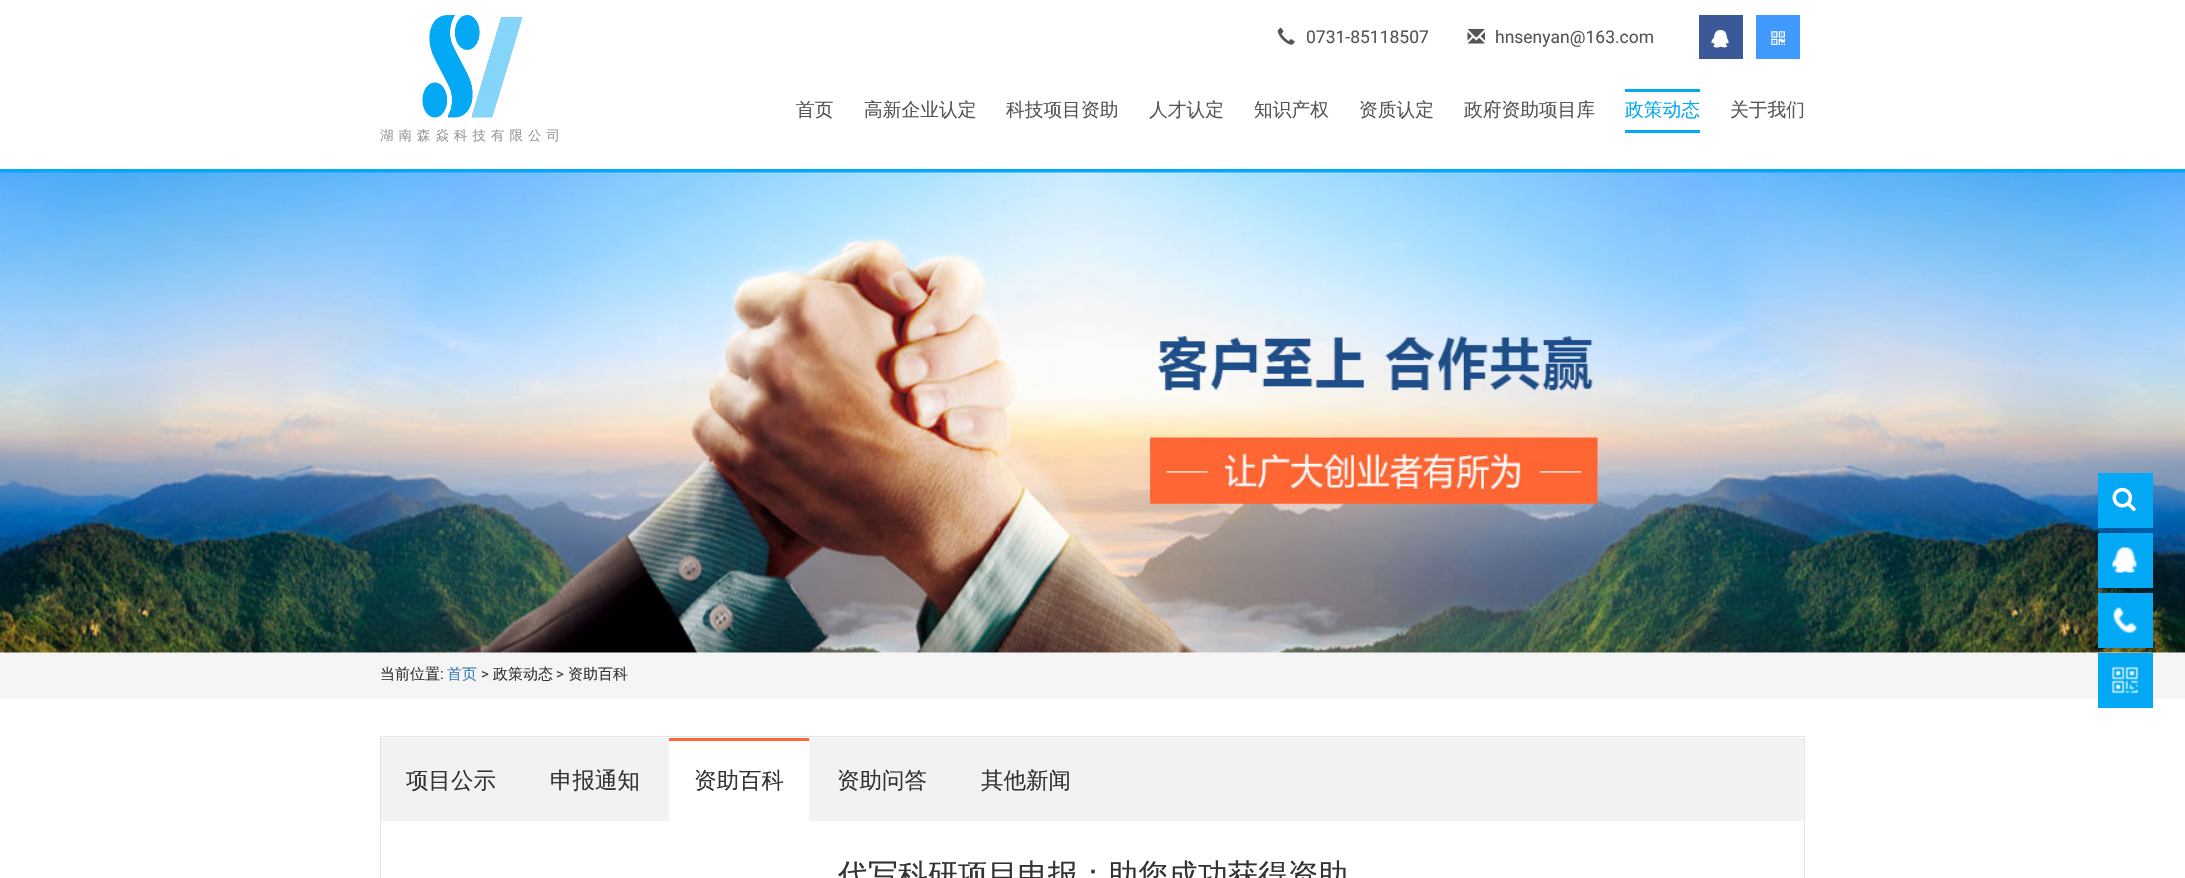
static SkFont makeFont(const char* family, int weight, float size, bool italic = false) {
  SkFontStyle style(weight, SkFontStyle::kNormal_Width,
    italic ? SkFontStyle::kItalic_Slant : SkFontStyle::kUpright_Slant);
  SkFont result(fontMgr->matchFamilyStyle(family, style), size);
  result.setSubpixel(true);
  return result;
}

static void text(SkCanvas* c, const char* s, float x, float y, const SkFont& font, SkColor color) {
  SkPaint ink(SkColor4f::FromColor(color));
  ink.setAntiAlias(true);
  c->drawString(s, x, y, font, ink);
}

static void spacedText(SkCanvas* c, const char* s, float x, float y, const SkFont& font, const SkPaint& ink, float letter, float word) {
  std::vector<SkGlyphID> glyphs(font.countText(s, strlen(s), SkTextEncoding::kUTF8));
  std::vector<float> xs(glyphs.size());
  font.textToGlyphs(s, strlen(s), SkTextEncoding::kUTF8, glyphs);
  font.getXPos(glyphs, xs, x);
  float extra = 0;
  for (size_t i = 0; i < glyphs.size(); i++) {
    xs[i] += extra;
    extra += letter + word * (glyphs[i] == font.unicharToGlyph(' '));
  }
  c->drawTextBlob(SkTextBlob::MakeFromPosHGlyphs(glyphs, xs, y, font), 0, 0, ink);
}

static void box(SkCanvas* c, float l, float t, float r, float b, SkColor color) {
  SkPaint ink(SkColor4f::FromColor(color));
  ink.setAntiAlias(true);
  c->drawRect(SkRect::MakeLTRB(l, t, r, b), ink);
}

static void picture(SkCanvas* c, const char* path, float l, float t, float r, float b) {
  auto image = SkImages::DeferredFromEncodedData(SkData::MakeFromFileName(path));
  c->drawImageRect(image, SkRect::MakeLTRB(l, t, r, b), SkSamplingOptions());
}

void draw(SkCanvas* c) {
  SkPaint paint;
  paint.setAntiAlias(true);
  c->clear(0xffffffff);
  box(c, 0, 169, 2185, 173, 0xff03a9f4);
  picture(c, "img_01.png", 1277, 27, 1295, 45);
  SkFont face1 = makeFont("Roboto", 400, 17.5f);
  text(c, "0731-85118507", 1306, 43, face1, 0xff555555);
  picture(c, "img_02.png", 1467, 28, 1485, 44);
  text(c, "hnsenyan@163.com", 1495, 43, face1, 0xff555555);
  box(c, 1699, 15, 1743, 59, 0xff3b5998);
  picture(c, "img_03.png", 1711, 30, 1729, 48);
  box(c, 1756, 15, 1800, 59, 0xff4099ff);
  picture(c, "img_04.png", 1771, 31, 1785, 45);
  SkFont face2 = makeFont("WenQuanYi Zen Hei", 500, 18.75f);
  text(c, "首页", 796, 116, face2, 0xff555555);
  text(c, "高新企业认定", 864, 116, face2, 0xff555555);
  text(c, "科技项目资助", 1006, 116, face2, 0xff555555);
  text(c, "人才认定", 1149, 116, face2, 0xff555555);
  text(c, "知识产权", 1254, 116, face2, 0xff555555);
  text(c, "资质认定", 1359, 116, face2, 0xff555555);
  text(c, "政府资助项目库", 1464, 116, face2, 0xff555555);
  box(c, 1625, 89, 1700, 92, 0xff03a9f4);
  box(c, 1625, 130, 1700, 133, 0xff03a9f4);
  text(c, "政策动态", 1625, 116, face2, 0xff03a9f4);
  text(c, "关于我们", 1730, 116, face2, 0xff555555);
  picture(c, "img_05.png", 422, 15, 523, 118);
  SkFont face3 = makeFont("WenQuanYi Zen Hei", 500, 13.5f);
  paint.setColor(0xff999999);
  spacedText(c, "湖南森焱科技有限公司", 380, 140, face3, paint, 5, 0);
  picture(c, "img_06.png", 0, 172, 2185, 653);
  box(c, 0, 653, 2185, 699, 0xfff5f5f5);
  SkFont face4 = makeFont("WenQuanYi Zen Hei", 500, 15);
  text(c, "当前位置", 380, 679, face4, 0xff333333);
  SkFont face5 = makeFont("Roboto", 400, 15);
  text(c, ":", 440, 679, face5, 0xff333333);
  text(c, "首页", 447, 679, face4, 0xff337ab7);
  text(c, ">", 481, 679, face5, 0xff333333);
  text(c, "政策动态", 493, 679, face4, 0xff333333);
  text(c, ">", 556, 679, face5, 0xff333333);
  text(c, "资助百科", 568, 679, face4, 0xff333333);
  box(c, 2098, 473, 2153, 528, 0xff03a9f4);
  picture(c, "img_07.png", 2112, 487, 2136, 511);
  box(c, 2098, 533, 2153, 588, 0xff03a9f4);
  picture(c, "img_08.png", 2112, 547, 2137, 573);
  box(c, 2098, 593, 2153, 648, 0xff03a9f4);
  picture(c, "img_09.png", 2113, 607, 2137, 633);
  box(c, 2098, 653, 2153, 708, 0xff03a9f4);
  picture(c, "img_10.png", 2111, 666, 2139, 694);
  paint.setStyle(SkPaint::kStroke_Style);
  paint.setStrokeWidth(1);
  paint.setColor(0xffe4e4e4);
  c->drawRect(SkRect::MakeLTRB(380.5f, 736.5f, 1804.5f, 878.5f), paint);
  box(c, 381, 738, 1804, 821, 0xfff2f2f2);
  SkFont face6 = makeFont("WenQuanYi Zen Hei", 500, 22.5f);
  text(c, "项目公示", 406, 788, face6, 0xff333333);
  text(c, "申报通知", 550, 788, face6, 0xff333333);
  box(c, 669, 741, 809, 821, 0xffffffff);
  box(c, 669, 738, 809, 741, 0xffff6633);
  text(c, "资助百科", 694, 788, face6, 0xff333333);
  text(c, "资助问答", 837, 788, face6, 0xff333333);
  text(c, "其他新闻", 981, 788, face6, 0xff333333);
  SkFont face7 = makeFont("WenQuanYi Zen Hei", 500, 30);
  text(c, "代写科研项目申报：助您成功获得资助", 838, 885, face7, 0xff333333);
}
